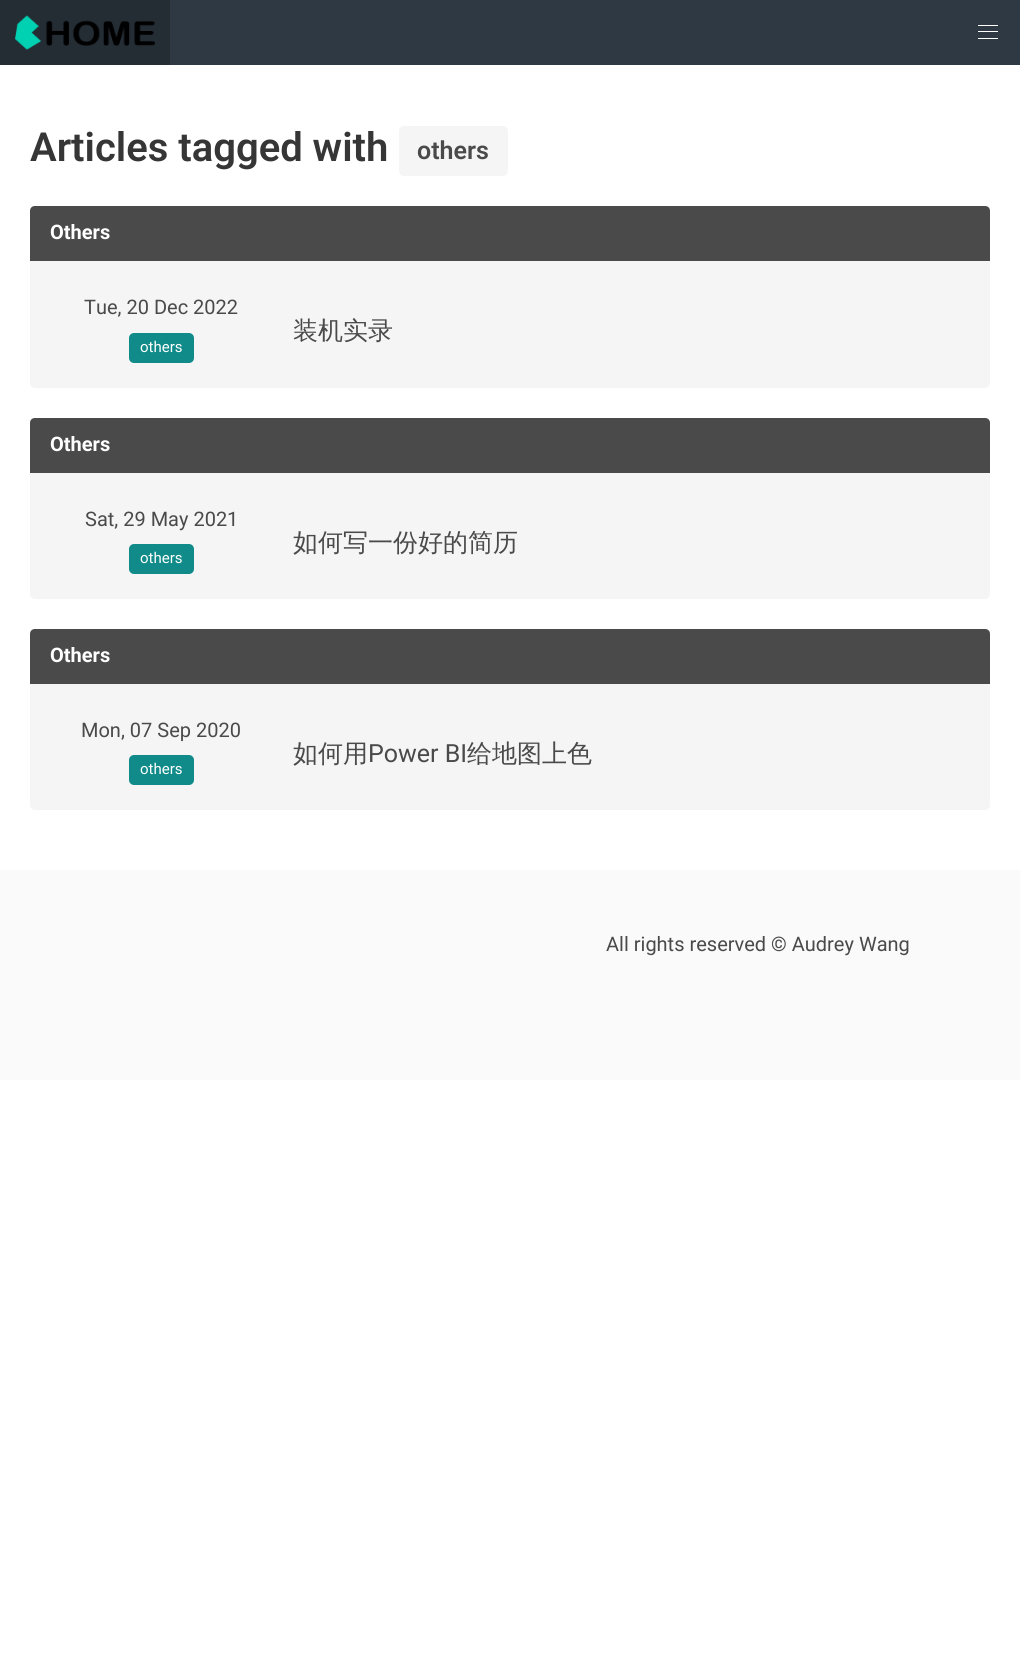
import math
import cairo

surface = cairo.ImageSurface(cairo.FORMAT_RGB24, 1020, 1665)
cr = cairo.Context(surface)
options = cairo.FontOptions()
options.set_hint_metrics(cairo.HINT_METRICS_OFF)
options.set_hint_style(cairo.HINT_STYLE_NONE)
cr.set_font_options(options)
cr.set_miter_limit(4)


def rgb(code):
    cr.set_source_rgb(*(v / 255 for v in bytes.fromhex(code[-6:])))


def rrect(x, y, w, h, r):
    cr.new_sub_path()
    for i, (u, v) in enumerate([(x + w - r, y + h - r), (x + r, y + h - r), (x + r, y + r), (x + w - r, y + r)]):
        cr.arc(u, v, r, i * math.pi / 2, (i + 1) * math.pi / 2)
    cr.close_path()


def image(path, x, y, w, h):
    cr.save()
    cr.set_source_surface(cairo.ImageSurface.create_from_png(path), x, y)
    cr.rectangle(x, y, w, h)
    cr.fill()
    cr.restore()


rgb("#ffffff")
cr.paint()
rgb("#2e3943")
cr.rectangle(170, 0, 850, 65)
cr.fill()
rgb("#242c34")
cr.rectangle(0, 0, 170, 65)
cr.fill()
image("img/1.png", 15, 15, 140, 35)
for x, y, w, h, color in [
    (978, 25, 20, 1, "#ffffff"),
    (978, 31, 20, 1, "#ffffff"),
    (978, 38, 20, 1, "#ffffff"),
]:
    rgb(color)
    cr.rectangle(x, y, w, h)
    cr.fill()
rgb("#f5f5f5")
rrect(399, 126, 109, 50, 5)
cr.fill()
rrect(30, 206, 960, 182, 5)
cr.fill()
rgb("#4a4a4a")
cr.new_path()
cr.move_to(35, 206)
cr.line_to(985, 206)
cr.curve_to(988, 206, 990, 208, 990, 211)
cr.line_to(990, 261)
cr.line_to(30, 261)
cr.line_to(30, 211)
cr.curve_to(30, 208, 32, 206, 35, 206)
cr.close_path()
cr.fill()
rgb("#108b8a")
rrect(129, 333, 65, 30, 5)
cr.fill()
rgb("#f5f5f5")
rrect(30, 418, 960, 181, 5)
cr.fill()
rgb("#4a4a4a")
cr.new_path()
cr.move_to(35, 418)
cr.line_to(985, 418)
cr.curve_to(988, 418, 990, 420, 990, 423)
cr.line_to(990, 473)
cr.line_to(30, 473)
cr.line_to(30, 423)
cr.curve_to(30, 420, 32, 418, 35, 418)
cr.close_path()
cr.fill()
rgb("#108b8a")
rrect(129, 544, 65, 30, 5)
cr.fill()
rgb("#f5f5f5")
rrect(30, 629, 960, 181, 5)
cr.fill()
rgb("#4a4a4a")
cr.new_path()
cr.move_to(35, 629)
cr.line_to(985, 629)
cr.curve_to(988, 629, 990, 631, 990, 634)
cr.line_to(990, 684)
cr.line_to(30, 684)
cr.line_to(30, 634)
cr.curve_to(30, 631, 32, 629, 35, 629)
cr.close_path()
cr.fill()
rgb("#108b8a")
rrect(129, 755, 65, 30, 5)
cr.fill()
rgb("#fafafa")
cr.rectangle(0, 870, 1020, 210)
cr.fill()
cr.select_font_face("Roboto SemiBold")
cr.set_font_size(40)
rgb("#363636")
cr.move_to(30, 161)
cr.show_text("Articles tagged with")
cr.set_font_size(25)
rgb("#4a4a4a")
cr.move_to(417, 159)
cr.show_text("others")
cr.select_font_face("Roboto", cairo.FONT_SLANT_NORMAL, cairo.FONT_WEIGHT_BOLD)
cr.set_font_size(20)
rgb("#ffffff")
cr.move_to(50, 239)
cr.show_text("Others")
cr.select_font_face("Roboto")
rgb("#4a4a4a")
cr.move_to(84, 314)
cr.show_text("Tue, 20 Dec 2022")
cr.set_font_size(15)
rgb("#ffffff")
cr.move_to(140, 352)
cr.show_text("others")
cr.select_font_face("WenQuanYi Zen Hei Medium")
cr.set_font_size(25)
rgb("#4a4a4a")
cr.move_to(293, 339)
cr.show_text("装机实录")
cr.select_font_face("Roboto", cairo.FONT_SLANT_NORMAL, cairo.FONT_WEIGHT_BOLD)
cr.set_font_size(20)
rgb("#ffffff")
cr.move_to(50, 451)
cr.show_text("Others")
cr.select_font_face("Roboto")
rgb("#4a4a4a")
cr.move_to(85, 526)
cr.show_text("Sat, 29 May 2021")
cr.set_font_size(15)
rgb("#ffffff")
cr.move_to(140, 563)
cr.show_text("others")
cr.select_font_face("WenQuanYi Zen Hei Medium")
cr.set_font_size(25)
rgb("#4a4a4a")
cr.move_to(293, 551)
cr.show_text("如何写一份好的简历")
cr.select_font_face("Roboto", cairo.FONT_SLANT_NORMAL, cairo.FONT_WEIGHT_BOLD)
cr.set_font_size(20)
rgb("#ffffff")
cr.move_to(50, 662)
cr.show_text("Others")
cr.select_font_face("Roboto")
rgb("#4a4a4a")
cr.move_to(81, 737)
cr.show_text("Mon, 07 Sep 2020")
cr.set_font_size(15)
rgb("#ffffff")
cr.move_to(140, 774)
cr.show_text("others")
cr.select_font_face("WenQuanYi Zen Hei Medium")
cr.set_font_size(25)
rgb("#4a4a4a")
cr.move_to(293, 762)
cr.show_text("如何用")
cr.select_font_face("Roboto")
cr.move_to(368, 762)
cr.show_text("Power BI")
cr.select_font_face("WenQuanYi Zen Hei Medium")
cr.move_to(467, 762)
cr.show_text("给地图上色")
cr.select_font_face("Roboto")
cr.set_font_size(20)
cr.move_to(606, 951)
cr.show_text("All rights reserved © Audrey Wang")
surface.write_to_png("page.png")
